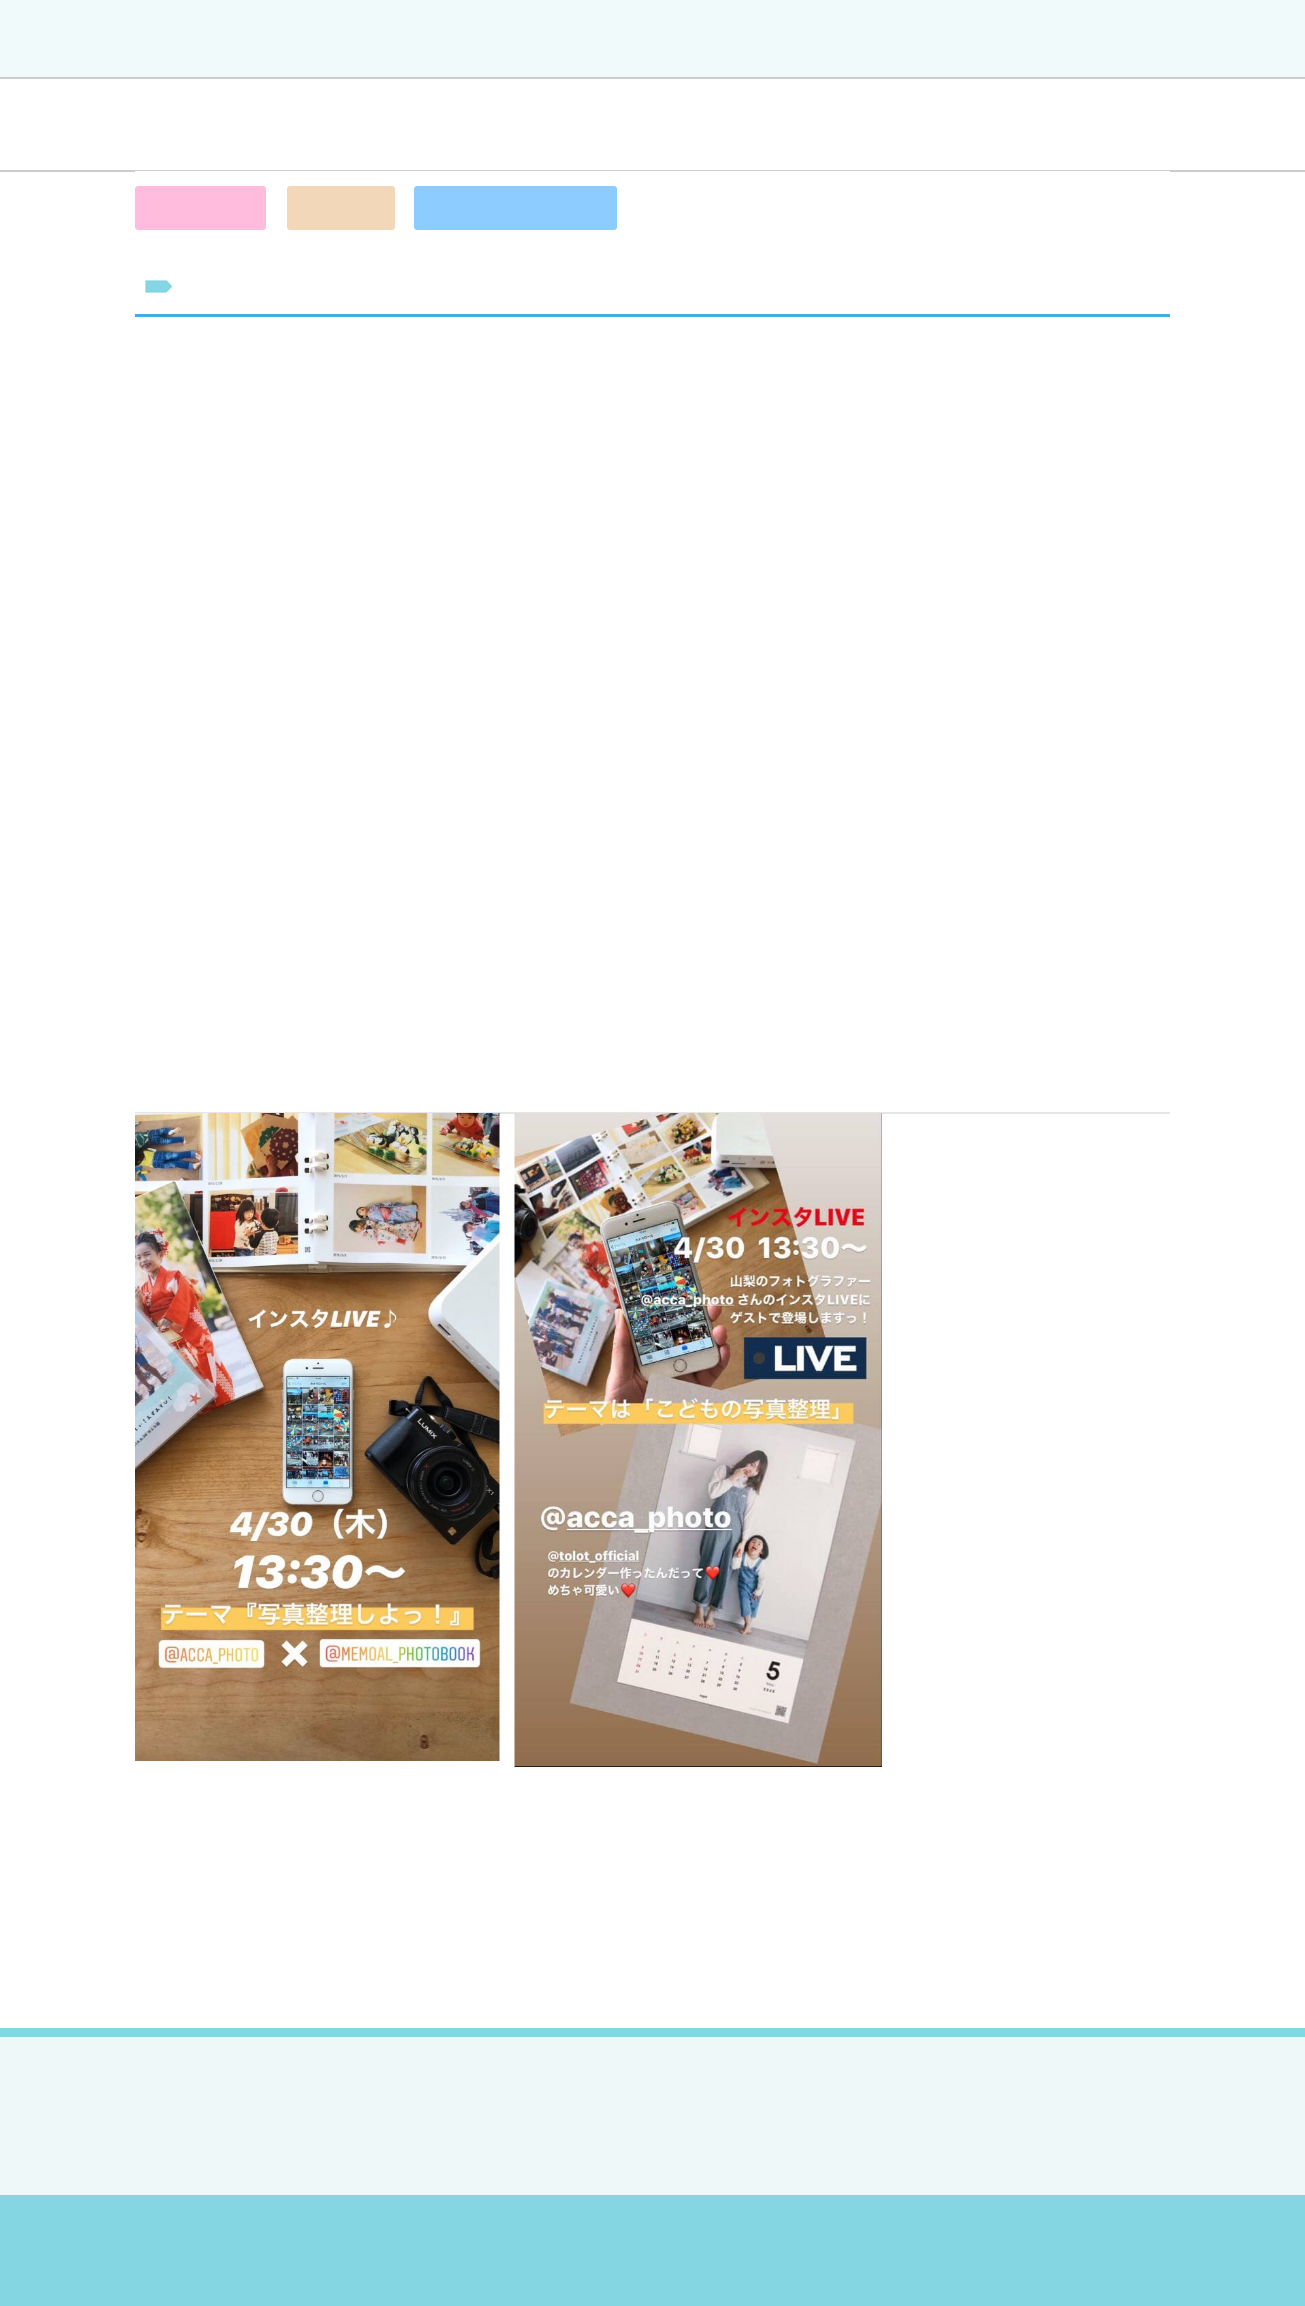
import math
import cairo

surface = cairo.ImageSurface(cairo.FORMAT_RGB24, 1305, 2306)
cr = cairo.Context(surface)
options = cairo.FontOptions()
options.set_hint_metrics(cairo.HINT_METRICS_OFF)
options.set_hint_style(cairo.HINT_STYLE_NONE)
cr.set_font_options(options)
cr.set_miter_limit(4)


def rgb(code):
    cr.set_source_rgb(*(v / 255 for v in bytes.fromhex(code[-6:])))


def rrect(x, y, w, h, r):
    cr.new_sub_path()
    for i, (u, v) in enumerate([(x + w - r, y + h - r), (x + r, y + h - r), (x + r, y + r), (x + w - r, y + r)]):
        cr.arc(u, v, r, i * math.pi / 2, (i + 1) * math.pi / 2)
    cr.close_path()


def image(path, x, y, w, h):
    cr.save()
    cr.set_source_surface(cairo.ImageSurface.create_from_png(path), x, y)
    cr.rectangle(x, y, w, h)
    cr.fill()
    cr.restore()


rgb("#ffffff")
cr.paint()
for x, y, w, h, color in [
    (0, 0, 1305, 77, "#f0fafb"),
    (0, 77, 1305, 2, "#cccccc"),
    (0, 170, 1305, 2, "#cccccc"),
    (135, 171, 1035, 1, "#ffffff"),
]:
    rgb(color)
    cr.rectangle(x, y, w, h)
    cr.fill()
rgb("#ffbcdd")
rrect(135, 186, 131, 44, 3)
cr.fill()
rgb("#f2d8b8")
rrect(287, 186, 108, 44, 3)
cr.fill()
rgb("#8cccff")
rrect(414, 186, 203, 44, 3)
cr.fill()
rgb("#43ace2")
cr.rectangle(135, 314, 1035, 3)
cr.fill()
image("img/1.png", 145, 280, 28, 13)
rgb("#e6e6e6")
cr.rectangle(135, 1112, 1035, 2)
cr.fill()
image("img/2.png", 135, 1113, 365, 648)
image("img/3.png", 514, 1113, 368, 654)
for x, y, w, h, color in [
    (0, 2028, 1305, 9, "#84d6e2"),
    (0, 2037, 1305, 158, "#eff8f9"),
    (0, 2195, 1305, 111, "#84d6e2"),
]:
    rgb(color)
    cr.rectangle(x, y, w, h)
    cr.fill()
surface.write_to_png("page.png")
